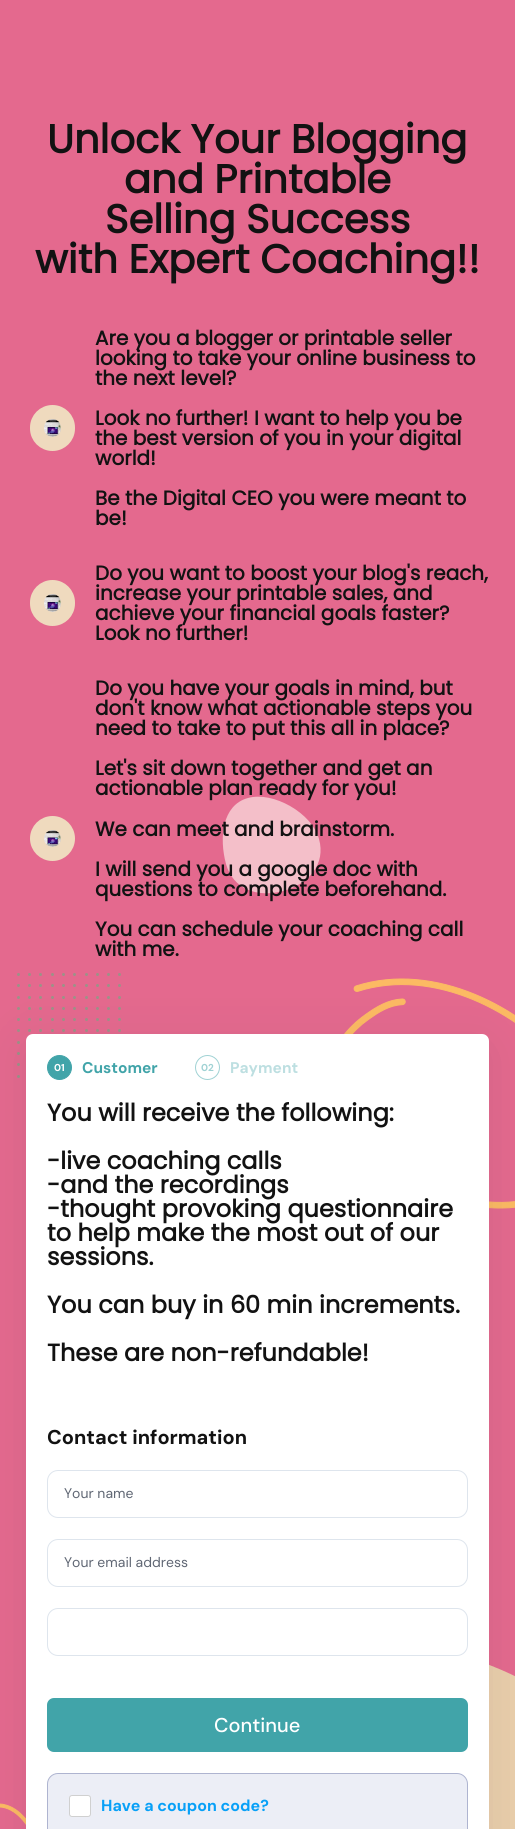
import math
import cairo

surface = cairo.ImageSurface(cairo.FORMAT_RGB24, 515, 1829)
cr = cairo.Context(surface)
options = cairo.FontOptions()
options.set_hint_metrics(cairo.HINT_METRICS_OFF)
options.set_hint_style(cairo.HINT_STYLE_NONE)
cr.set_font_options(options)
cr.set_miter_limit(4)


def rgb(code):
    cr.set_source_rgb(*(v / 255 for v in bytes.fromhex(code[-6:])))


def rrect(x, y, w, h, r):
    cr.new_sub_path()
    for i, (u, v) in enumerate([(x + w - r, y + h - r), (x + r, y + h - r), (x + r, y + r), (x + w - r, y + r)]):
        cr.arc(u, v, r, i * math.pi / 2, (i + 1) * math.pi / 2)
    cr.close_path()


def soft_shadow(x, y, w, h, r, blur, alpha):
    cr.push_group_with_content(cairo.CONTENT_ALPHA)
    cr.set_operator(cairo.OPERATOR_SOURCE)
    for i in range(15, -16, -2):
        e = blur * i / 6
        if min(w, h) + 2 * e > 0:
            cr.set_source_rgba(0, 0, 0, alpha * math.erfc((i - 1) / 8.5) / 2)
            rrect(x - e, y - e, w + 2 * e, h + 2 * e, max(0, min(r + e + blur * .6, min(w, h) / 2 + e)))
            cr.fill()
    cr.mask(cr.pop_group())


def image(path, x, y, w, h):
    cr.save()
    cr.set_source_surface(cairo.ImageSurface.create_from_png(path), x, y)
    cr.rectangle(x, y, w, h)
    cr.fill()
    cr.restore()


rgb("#e4698e")
cr.paint()
rgb("#efdabe")
rrect(37, 412, 31, 32, 15.5)
cr.fill_preserve()
cr.set_line_width(14)
cr.stroke()
image("img/1.png", 44, 419, 17, 18)
rrect(37, 587, 31, 32, 15.5)
cr.fill_preserve()
cr.stroke()
image("img/1.png", 44, 594, 17, 18)
cr.arc(52.5, 838.5, 15.5, 0, 2 * math.pi)
cr.fill_preserve()
cr.stroke()
image("img/2.png", 44, 830, 17, 17)
rgb("#f4bfc9")
cr.new_path()
cr.move_to(319, 839)
cr.curve_to(326, 864, 309, 884, 283, 891)
cr.curve_to(257, 898, 233, 889, 226, 864)
cr.curve_to(219, 838, 222, 805, 248, 798)
cr.curve_to(273, 791, 312, 813, 319, 839)
cr.close_path()
cr.fill()
rgb("#9c9287")
cr.arc(18.5, 974.5, 1.5, 0, 2 * math.pi)
cr.fill()
cr.arc(29.5, 974.5, 1.5, 0, 2 * math.pi)
cr.fill()
cr.arc(40.5, 974.5, 1.5, 0, 2 * math.pi)
cr.fill()
cr.arc(52.5, 974.5, 1.5, 0, 2 * math.pi)
cr.fill()
cr.arc(63.5, 974.5, 1.5, 0, 2 * math.pi)
cr.fill()
cr.arc(74.5, 974.5, 1.5, 0, 2 * math.pi)
cr.fill()
cr.arc(86.5, 974.5, 1.5, 0, 2 * math.pi)
cr.fill()
cr.arc(97.5, 974.5, 1.5, 0, 2 * math.pi)
cr.fill()
cr.arc(108.5, 974.5, 1.5, 0, 2 * math.pi)
cr.fill()
cr.arc(119.5, 974.5, 1.5, 0, 2 * math.pi)
cr.fill()
cr.arc(18.5, 985.5, 1.5, 0, 2 * math.pi)
cr.fill()
cr.arc(29.5, 985.5, 1.5, 0, 2 * math.pi)
cr.fill()
cr.arc(40.5, 985.5, 1.5, 0, 2 * math.pi)
cr.fill()
cr.arc(52.5, 985.5, 1.5, 0, 2 * math.pi)
cr.fill()
cr.arc(63.5, 985.5, 1.5, 0, 2 * math.pi)
cr.fill()
cr.arc(74.5, 985.5, 1.5, 0, 2 * math.pi)
cr.fill()
cr.arc(86.5, 985.5, 1.5, 0, 2 * math.pi)
cr.fill()
cr.arc(97.5, 985.5, 1.5, 0, 2 * math.pi)
cr.fill()
cr.arc(108.5, 985.5, 1.5, 0, 2 * math.pi)
cr.fill()
cr.arc(119.5, 985.5, 1.5, 0, 2 * math.pi)
cr.fill()
cr.arc(18.5, 997.5, 1.5, 0, 2 * math.pi)
cr.fill()
cr.arc(29.5, 997.5, 1.5, 0, 2 * math.pi)
cr.fill()
cr.arc(40.5, 997.5, 1.5, 0, 2 * math.pi)
cr.fill()
cr.arc(52.5, 997.5, 1.5, 0, 2 * math.pi)
cr.fill()
cr.arc(63.5, 997.5, 1.5, 0, 2 * math.pi)
cr.fill()
cr.arc(74.5, 997.5, 1.5, 0, 2 * math.pi)
cr.fill()
cr.arc(86.5, 997.5, 1.5, 0, 2 * math.pi)
cr.fill()
cr.arc(97.5, 997.5, 1.5, 0, 2 * math.pi)
cr.fill()
cr.arc(108.5, 997.5, 1.5, 0, 2 * math.pi)
cr.fill()
cr.arc(119.5, 997.5, 1.5, 0, 2 * math.pi)
cr.fill()
cr.arc(18.5, 1008.5, 1.5, 0, 2 * math.pi)
cr.fill()
cr.arc(29.5, 1008.5, 1.5, 0, 2 * math.pi)
cr.fill()
cr.arc(40.5, 1008.5, 1.5, 0, 2 * math.pi)
cr.fill()
cr.arc(52.5, 1008.5, 1.5, 0, 2 * math.pi)
cr.fill()
cr.arc(63.5, 1008.5, 1.5, 0, 2 * math.pi)
cr.fill()
cr.arc(74.5, 1008.5, 1.5, 0, 2 * math.pi)
cr.fill()
cr.arc(86.5, 1008.5, 1.5, 0, 2 * math.pi)
cr.fill()
cr.arc(97.5, 1008.5, 1.5, 0, 2 * math.pi)
cr.fill()
cr.arc(108.5, 1008.5, 1.5, 0, 2 * math.pi)
cr.fill()
cr.arc(119.5, 1008.5, 1.5, 0, 2 * math.pi)
cr.fill()
cr.arc(18.5, 1019.5, 1.5, 0, 2 * math.pi)
cr.fill()
cr.arc(29.5, 1019.5, 1.5, 0, 2 * math.pi)
cr.fill()
cr.arc(40.5, 1019.5, 1.5, 0, 2 * math.pi)
cr.fill()
cr.arc(52.5, 1019.5, 1.5, 0, 2 * math.pi)
cr.fill()
cr.arc(63.5, 1019.5, 1.5, 0, 2 * math.pi)
cr.fill()
cr.arc(74.5, 1019.5, 1.5, 0, 2 * math.pi)
cr.fill()
cr.arc(86.5, 1019.5, 1.5, 0, 2 * math.pi)
cr.fill()
cr.arc(97.5, 1019.5, 1.5, 0, 2 * math.pi)
cr.fill()
cr.arc(108.5, 1019.5, 1.5, 0, 2 * math.pi)
cr.fill()
cr.arc(119.5, 1019.5, 1.5, 0, 2 * math.pi)
cr.fill()
cr.arc(18.5, 1030.5, 1.5, 0, 2 * math.pi)
cr.fill()
cr.arc(29.5, 1030.5, 1.5, 0, 2 * math.pi)
cr.fill()
cr.arc(40.5, 1030.5, 1.5, 0, 2 * math.pi)
cr.fill()
cr.arc(52.5, 1030.5, 1.5, 0, 2 * math.pi)
cr.fill()
cr.arc(63.5, 1030.5, 1.5, 0, 2 * math.pi)
cr.fill()
cr.arc(74.5, 1030.5, 1.5, 0, 2 * math.pi)
cr.fill()
cr.arc(86.5, 1030.5, 1.5, 0, 2 * math.pi)
cr.fill()
cr.arc(97.5, 1030.5, 1.5, 0, 2 * math.pi)
cr.fill()
cr.arc(108.5, 1030.5, 1.5, 0, 2 * math.pi)
cr.fill()
cr.arc(119.5, 1030.5, 1.5, 0, 2 * math.pi)
cr.fill()
cr.arc(18.5, 1042.5, 1.5, 0, 2 * math.pi)
cr.fill()
cr.arc(18.5, 1053.5, 1.5, 0, 2 * math.pi)
cr.fill()
cr.arc(18.5, 1064.5, 1.5, 0, 2 * math.pi)
cr.fill()
cr.arc(18.5, 1076.5, 1.5, 0, 2 * math.pi)
cr.fill()
image("img/3.png", 344, 978, 171, 231)
image("img/4.png", 0, 1803, 26, 22)
rgb("#eaceab")
cr.new_path()
cr.move_to(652, 1821)
cr.curve_to(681, 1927, 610, 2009, 504, 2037)
cr.curve_to(397, 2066, 296, 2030, 267, 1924)
cr.curve_to(239, 1818, 251, 1681, 357, 1652)
cr.curve_to(464, 1624, 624, 1715, 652, 1821)
cr.close_path()
cr.fill()
rgb("#222f3e")
soft_shadow(26, 1044, 463, 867, 7, 25, 0.1)
rgb("#ffffff")
rrect(26, 1034, 463, 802, 7)
cr.fill()
rgb("#41a4a9")
cr.arc(59.5, 1067.5, 12, 0, 2 * math.pi)
cr.fill_preserve()
cr.set_line_width(1)
cr.stroke()
cr.arc(207.5, 1067.5, 12, 0, 2 * math.pi)
rgb("#a0d2d4")
cr.stroke()
rrect(47.5, 1470.5, 420, 47, 10.5)
rgb("#dee5ed")
cr.stroke()
rrect(47.5, 1539.5, 420, 47, 10.5)
cr.stroke()
rrect(47.5, 1608.5, 420, 47, 10.5)
cr.stroke()
rgb("#41a4a9")
rrect(47, 1698, 421, 54, 7)
cr.fill()
rgb("#eceef6")
rrect(47.5, 1773.5, 420, 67, 10.5)
cr.fill_preserve()
rgb("#aeb4d0")
cr.stroke()
rgb("#ffffff")
rrect(69.5, 1795.5, 21, 21, 2.5)
cr.fill_preserve()
rgb("#d0d0d0")
cr.stroke()
cr.select_font_face("Poppins", cairo.FONT_SLANT_NORMAL, cairo.FONT_WEIGHT_BOLD)
cr.set_font_size(40)
rgb("#121212")
for x, y, s in [
    (47, 153, "Unlock Your Blogging"),
    (124, 193, "and Printable"),
    (105, 233, "Selling Success"),
    (35, 273, "with Expert Coaching!!"),
]:
    cr.move_to(x, y)
    cr.show_text(s)
cr.set_font_size(20)
for x, y, s in [
    (95, 345, "Are you a blogger or printable seller"),
    (95, 365, "looking to take your online business to"),
    (95, 385, "the next level?"),
    (95, 425, "Look no further! I want to help you be"),
    (95, 445, "the best version of you in your digital"),
    (95, 465, "world!"),
    (95, 505, "Be the Digital CEO you were meant to"),
    (95, 525, "be!"),
    (95, 580, "Do you want to boost your blog's reach,"),
    (95, 600, "increase your printable sales, and"),
    (95, 620, "achieve your financial goals faster?"),
    (95, 640, "Look no further!"),
    (95, 695, "Do you have your goals in mind, but"),
    (95, 715, "don't know what actionable steps you"),
    (95, 735, "need to take to put this all in place?"),
    (95, 775, "Let's sit down together and get an"),
    (95, 795, "actionable plan ready for you!"),
    (95, 836, "We can meet and brainstorm."),
    (95, 876, "I will send you a google doc with"),
    (95, 896, "questions to complete beforehand."),
    (95, 936, "You can schedule your coaching call"),
    (95, 956, "with me."),
]:
    cr.move_to(x, y)
    cr.show_text(s)
cr.select_font_face("DM Sans", cairo.FONT_SLANT_NORMAL, cairo.FONT_WEIGHT_BOLD)
cr.set_font_size(10)
rgb("#ffffff")
cr.move_to(54, 1071)
cr.show_text("01")
cr.set_font_size(15.5)
rgb("#41a4a9")
cr.move_to(82, 1073)
cr.show_text("Customer")
cr.set_font_size(10)
rgb("#a0d2d4")
cr.move_to(201, 1071)
cr.show_text("02")
cr.set_font_size(15.5)
rgb("#bddfe1")
cr.move_to(230, 1073)
cr.show_text("Payment")
cr.select_font_face("Poppins", cairo.FONT_SLANT_NORMAL, cairo.FONT_WEIGHT_BOLD)
cr.set_font_size(24)
rgb("#121212")
for x, y, s in [
    (47, 1121, "You will receive the following:"),
    (47, 1169, "-live coaching calls"),
    (47, 1193, "-and the recordings"),
    (47, 1217, "-thought provoking questionnaire"),
    (47, 1241, "to help make the most out of our"),
    (47, 1265, "sessions."),
    (47, 1313, "You can buy in 60 min increments."),
    (47, 1361, "These are non-refundable!"),
]:
    cr.move_to(x, y)
    cr.show_text(s)
cr.select_font_face("DM Sans", cairo.FONT_SLANT_NORMAL, cairo.FONT_WEIGHT_BOLD)
cr.set_font_size(20)
cr.move_to(47, 1444)
cr.show_text("Contact information")
cr.select_font_face("DM Sans")
cr.set_font_size(14)
rgb("#606774")
cr.move_to(64, 1498)
cr.show_text("Your name")
cr.move_to(64, 1567)
cr.show_text("Your email address")
cr.select_font_face("DM Sans Medium")
cr.set_font_size(20)
rgb("#ffffff")
cr.move_to(214, 1732)
cr.show_text("Continue")
cr.select_font_face("DM Sans", cairo.FONT_SLANT_NORMAL, cairo.FONT_WEIGHT_BOLD)
cr.set_font_size(16)
rgb("#08a0f7")
cr.move_to(101, 1811)
cr.show_text("Have a coupon code?")
surface.write_to_png("page.png")
